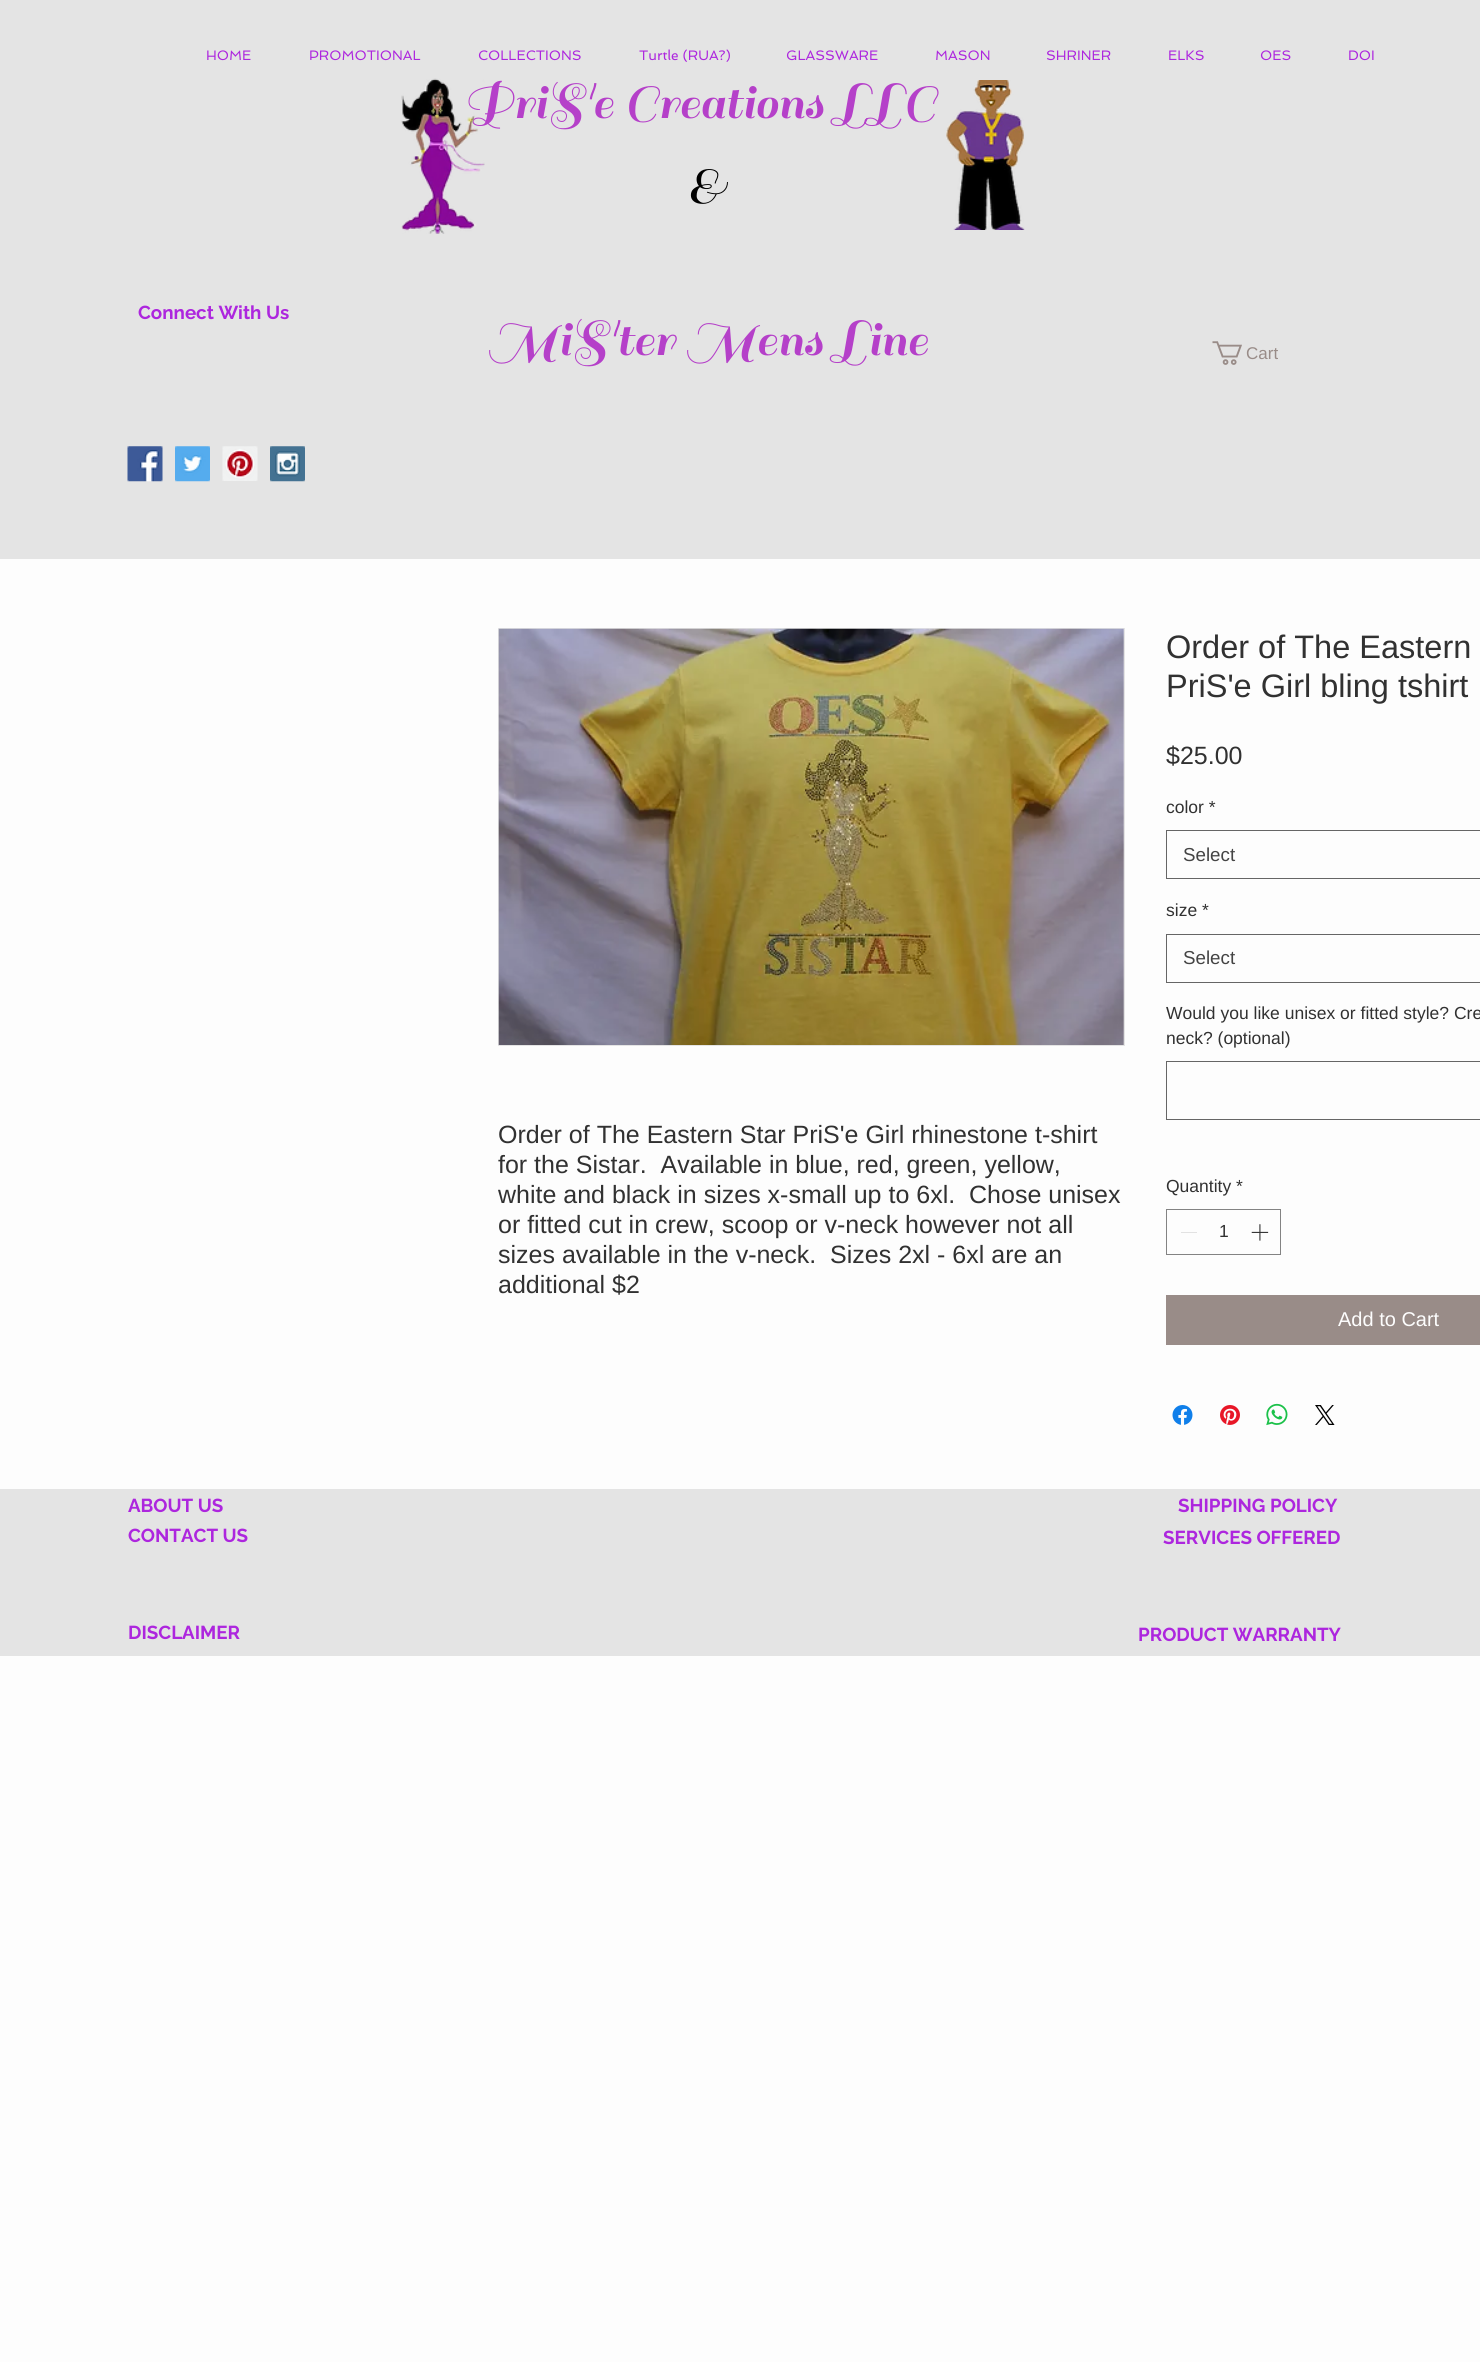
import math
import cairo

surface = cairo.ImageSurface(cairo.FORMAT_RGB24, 1480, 2362)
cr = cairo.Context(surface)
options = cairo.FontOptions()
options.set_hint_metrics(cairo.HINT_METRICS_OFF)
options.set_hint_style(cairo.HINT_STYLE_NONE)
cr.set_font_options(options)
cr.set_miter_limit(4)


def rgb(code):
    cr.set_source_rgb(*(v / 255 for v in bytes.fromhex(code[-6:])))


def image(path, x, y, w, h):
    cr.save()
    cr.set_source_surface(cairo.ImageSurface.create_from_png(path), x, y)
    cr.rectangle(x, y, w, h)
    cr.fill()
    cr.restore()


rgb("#fdfdfd")
cr.paint()
rgb("#e4e4e4")
cr.rectangle(0, 0, 1480, 559)
cr.fill()
image("img/2.png", 946, 80, 79, 150)
image("img/3.png", 1212, 341, 30, 24)
image("img/4.png", 127, 446, 36, 36)
image("img/5.png", 175, 446, 35, 36)
image("img/6.png", 222, 446, 36, 35)
image("img/7.png", 270, 446, 35, 36)
cr.rectangle(498.5, 628.5, 626, 417)
cr.set_line_width(1)
cr.stroke()
image("img/8.png", 498, 628, 626, 417)
cr.rectangle(1166.5, 830.5, 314, 48)
rgb("#666666")
cr.stroke()
cr.rectangle(1166.5, 934.5, 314, 48)
cr.stroke()
cr.rectangle(1166.5, 1061.5, 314, 58)
cr.stroke()
cr.rectangle(1166.5, 1209.5, 114, 45)
rgb("#838383")
cr.stroke()
rgb("#e2e2e2")
cr.rectangle(1181, 1232, 16, 1)
cr.fill()
image("img/9.png", 1251, 1224, 18, 17)
rgb("#998c88")
cr.rectangle(1166, 1295, 314, 50)
cr.fill()
image("img/10.png", 1172, 1405, 21, 20)
image("img/11.png", 1220, 1405, 20, 20)
image("img/12.png", 1266, 1403, 22, 23)
image("img/13.png", 1315, 1405, 20, 20)
rgb("#e4e4e4")
cr.rectangle(0, 1489, 1480, 167)
cr.fill()
cr.select_font_face("Spinnaker")
cr.set_font_size(13.75)
rgb("#ad26de")
for x, y, s in [
    (206, 60, "HOME"),
    (309, 60, "PROMOTIONAL"),
    (478, 60, "COLLECTIONS"),
    (639, 60, "Turtle (RUA?)"),
    (786, 60, "GLASSWARE"),
    (935, 60, "MASON"),
    (1046, 60, "SHRINER"),
    (1168, 60, "ELKS"),
    (1260, 60, "OES"),
    (1348, 60, "DOI"),
]:
    cr.move_to(x, y)
    cr.show_text(s)
cr.select_font_face("Sail")
cr.set_font_size(52.5)
rgb("#b540c9")
cr.move_to(463, 118)
cr.show_text("PriS'e Creations LLC")
image("img/1.png", 401, 78, 84, 156)
rgb("#000000")
cr.move_to(688, 201)
cr.show_text("&")
cr.select_font_face("Raleway", cairo.FONT_SLANT_NORMAL, cairo.FONT_WEIGHT_BOLD)
cr.set_font_size(18.75)
rgb("#ad26de")
cr.move_to(138, 319)
cr.show_text("Connect With Us")
cr.select_font_face("Sail")
cr.set_font_size(52.5)
rgb("#b540c9")
cr.move_to(488, 355)
cr.show_text("MiS'ter Mens Line")
cr.select_font_face("Liberation Sans")
cr.set_font_size(17)
rgb("#998c88")
cr.move_to(1246, 359)
cr.show_text("Cart")
cr.set_font_size(25)
rgb("#313131")
cr.move_to(498, 1143)
cr.show_text("Order of The Eastern Star PriS'e Girl rhinestone t-shirt")
cr.move_to(498, 1173)
cr.show_text("for the Sistar.  Available in blue, red, green, yellow,")
cr.save()
cr.rectangle(498, 1119, 625, 180)
cr.clip()
cr.move_to(498, 1203)
cr.show_text("white and black in sizes x-small up to 6xl.  Chose unisex")
cr.restore()
for x, y, s in [
    (498, 1233, "or fitted cut in crew, scoop or v-neck however not all"),
    (498, 1263, "sizes available in the v-neck.  Sizes 2xl - 6xl are an"),
    (498, 1293, "additional $2"),
]:
    cr.move_to(x, y)
    cr.show_text(s)
cr.set_font_size(32.5)
cr.move_to(1166, 658)
cr.show_text("Order of The Eastern")
cr.move_to(1166, 697)
cr.show_text("PriS'e Girl bling tshirt")
cr.set_font_size(25)
cr.move_to(1166, 764)
cr.show_text("$25.00")
cr.set_font_size(17.5)
cr.move_to(1166, 813)
cr.show_text("color *")
cr.set_font_size(18.75)
rgb("#444444")
cr.move_to(1183, 861)
cr.show_text("Select")
cr.set_font_size(17.5)
rgb("#313131")
cr.move_to(1166, 916)
cr.show_text("size *")
cr.set_font_size(18.75)
rgb("#444444")
cr.move_to(1183, 964)
cr.show_text("Select")
cr.set_font_size(17.5)
rgb("#313131")
for x, y, s in [
    (1166, 1019, "Would you like unisex or fitted style? Cre"),
    (1166, 1044, "neck? (optional)"),
    (1166, 1192, "Quantity *"),
    (1219, 1237, "1"),
]:
    cr.move_to(x, y)
    cr.show_text(s)
cr.set_font_size(20)
rgb("#fdfdfd")
cr.move_to(1338, 1326)
cr.show_text("Add to Cart")
cr.select_font_face("Raleway", cairo.FONT_SLANT_NORMAL, cairo.FONT_WEIGHT_BOLD)
cr.set_font_size(18.75)
rgb("#ad26de")
for x, y, s in [
    (128, 1512, "ABOUT US"),
    (1178, 1512, "SHIPPING POLICY"),
    (128, 1542, "CONTACT US"),
    (1163, 1544, "SERVICES OFFERED"),
    (128, 1639, "DISCLAIMER"),
    (1138, 1641, "PRODUCT WARRANTY"),
]:
    cr.move_to(x, y)
    cr.show_text(s)
surface.write_to_png("page.png")
